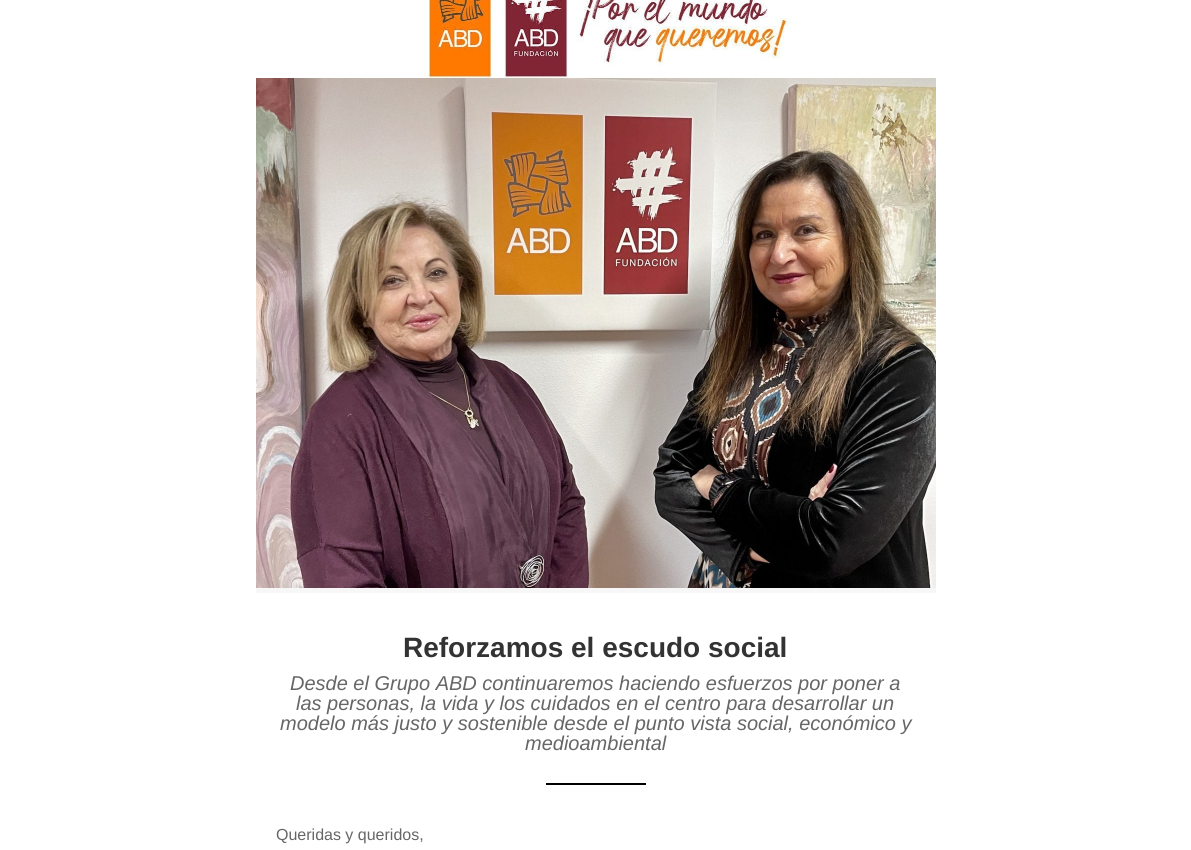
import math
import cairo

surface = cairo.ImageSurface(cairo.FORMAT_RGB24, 1191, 850)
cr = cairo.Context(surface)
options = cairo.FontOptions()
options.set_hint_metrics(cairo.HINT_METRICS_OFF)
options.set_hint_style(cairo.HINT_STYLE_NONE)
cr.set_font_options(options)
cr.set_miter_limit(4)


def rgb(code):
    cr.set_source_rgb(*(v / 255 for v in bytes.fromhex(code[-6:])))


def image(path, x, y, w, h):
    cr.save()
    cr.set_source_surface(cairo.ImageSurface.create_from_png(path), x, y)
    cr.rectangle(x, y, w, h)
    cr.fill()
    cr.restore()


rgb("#ffffff")
cr.paint()
image("img/1.png", 256, 0, 680, 78)
image("img/2.png", 256, 78, 680, 510)
rgb("#f7f7f7")
cr.rectangle(256, 588, 680, 5)
cr.fill()
rgb("#000000")
cr.rectangle(546, 783, 100, 2)
cr.fill()
cr.select_font_face("Liberation Sans", cairo.FONT_SLANT_NORMAL, cairo.FONT_WEIGHT_BOLD)
cr.set_font_size(28)
rgb("#333333")
cr.move_to(403, 657)
cr.show_text("Reforzamos el escudo social")
cr.select_font_face("Liberation Sans", cairo.FONT_SLANT_ITALIC)
cr.set_font_size(20)
rgb("#666666")
for x, y, s in [
    (290, 690, "Desde el Grupo ABD continuaremos haciendo esfuerzos por poner a"),
    (296, 710, "las personas, la vida y los cuidados en el centro para desarrollar un"),
    (280, 730, "modelo más justo y sostenible desde el punto vista social, económico y"),
    (525, 750, "medioambiental"),
]:
    cr.move_to(x, y)
    cr.show_text(s)
cr.select_font_face("Liberation Sans")
cr.set_font_size(16)
cr.move_to(276, 840)
cr.show_text("Queridas y queridos,")
surface.write_to_png("page.png")
